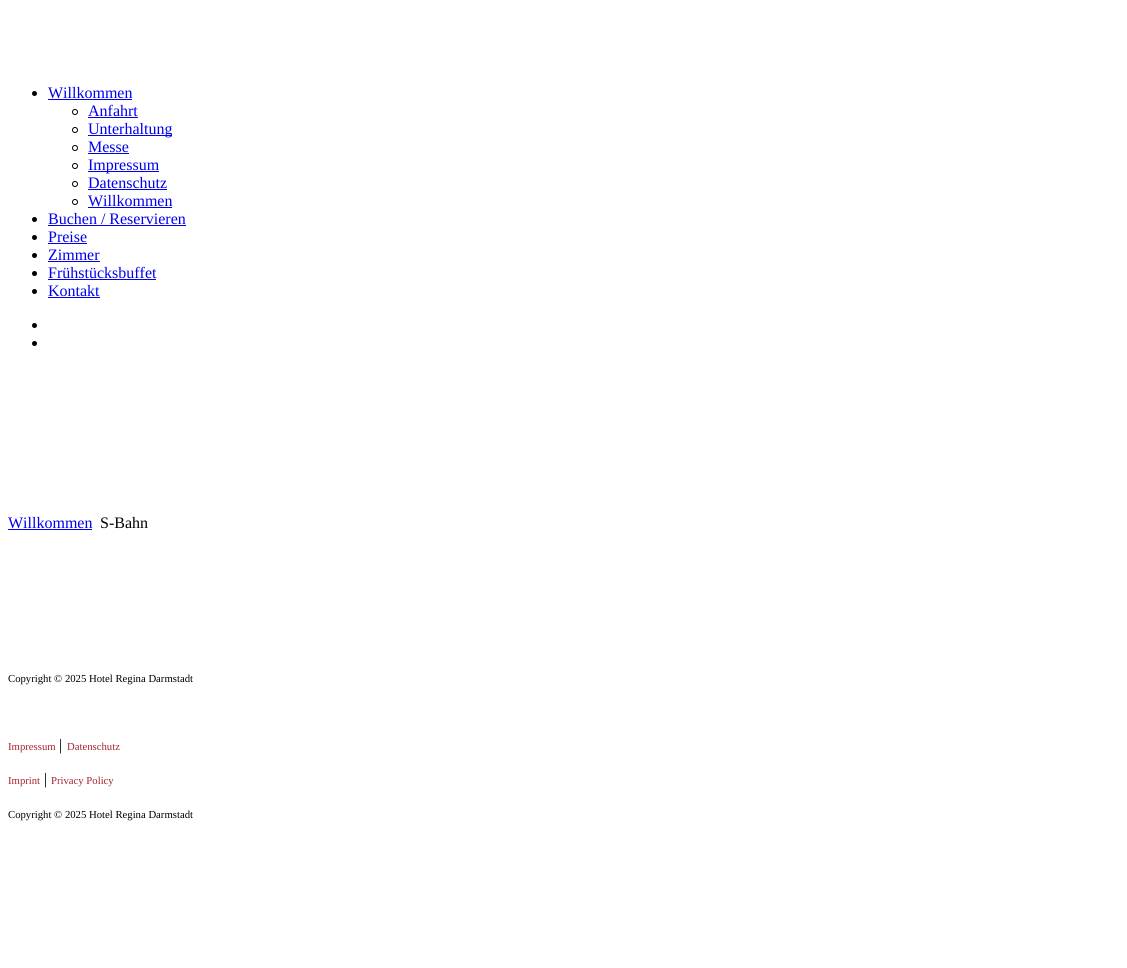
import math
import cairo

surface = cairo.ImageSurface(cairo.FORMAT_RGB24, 1127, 968)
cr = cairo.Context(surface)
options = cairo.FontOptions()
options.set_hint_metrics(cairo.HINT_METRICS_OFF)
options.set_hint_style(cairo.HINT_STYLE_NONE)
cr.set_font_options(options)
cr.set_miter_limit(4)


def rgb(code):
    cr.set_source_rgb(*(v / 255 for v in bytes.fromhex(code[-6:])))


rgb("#ffffff")
cr.paint()
rgb("#000000")
cr.arc(34.5, 93.5, 2.5, 0, 2 * math.pi)
cr.fill()
rgb("#0000ee")
cr.rectangle(48, 99, 84, 1)
cr.fill()
cr.arc(75, 112, 2.5, 0, 2 * math.pi)
rgb("#000000")
cr.set_line_width(1)
cr.stroke()
rgb("#0000ee")
cr.rectangle(88, 117, 50, 1)
cr.fill()
cr.arc(75, 130, 2.5, 0, 2 * math.pi)
rgb("#000000")
cr.stroke()
rgb("#0000ee")
cr.rectangle(88, 135, 84, 1)
cr.fill()
cr.arc(75, 148, 2.5, 0, 2 * math.pi)
rgb("#000000")
cr.stroke()
rgb("#0000ee")
cr.rectangle(88, 153, 41, 1)
cr.fill()
cr.arc(75, 166, 2.5, 0, 2 * math.pi)
rgb("#000000")
cr.stroke()
rgb("#0000ee")
cr.rectangle(88, 171, 71, 1)
cr.fill()
cr.arc(75, 184, 2.5, 0, 2 * math.pi)
rgb("#000000")
cr.stroke()
rgb("#0000ee")
cr.rectangle(88, 189, 79, 1)
cr.fill()
cr.arc(75, 202, 2.5, 0, 2 * math.pi)
rgb("#000000")
cr.stroke()
rgb("#0000ee")
cr.rectangle(88, 207, 84, 1)
cr.fill()
rgb("#000000")
cr.arc(34.5, 219.5, 2.5, 0, 2 * math.pi)
cr.fill()
rgb("#0000ee")
cr.rectangle(48, 225, 138, 1)
cr.fill()
rgb("#000000")
cr.arc(34.5, 237.5, 2.5, 0, 2 * math.pi)
cr.fill()
rgb("#0000ee")
cr.rectangle(48, 243, 39, 1)
cr.fill()
rgb("#000000")
cr.arc(34.5, 255.5, 2.5, 0, 2 * math.pi)
cr.fill()
rgb("#0000ee")
cr.rectangle(48, 261, 52, 1)
cr.fill()
rgb("#000000")
cr.arc(34.5, 273.5, 2.5, 0, 2 * math.pi)
cr.fill()
rgb("#0000ee")
cr.rectangle(48, 279, 108, 1)
cr.fill()
rgb("#000000")
cr.arc(34.5, 291.5, 2.5, 0, 2 * math.pi)
cr.fill()
rgb("#0000ee")
cr.rectangle(48, 297, 52, 1)
cr.fill()
rgb("#000000")
cr.arc(34.5, 325.5, 2.5, 0, 2 * math.pi)
cr.fill()
cr.arc(34.5, 343.5, 2.5, 0, 2 * math.pi)
cr.fill()
rgb("#0000ee")
cr.rectangle(8, 529, 84, 1)
cr.fill()
cr.select_font_face("Liberation Serif")
cr.set_font_size(16)
for x, y, s in [
    (48, 98, "Willkommen"),
    (88, 116, "Anfahrt"),
    (88, 134, "Unterhaltung"),
    (88, 152, "Messe"),
    (88, 170, "Impressum"),
    (88, 188, "Datenschutz"),
    (88, 206, "Willkommen"),
    (48, 224, "Buchen / Reservieren"),
    (48, 242, "Preise"),
    (48, 260, "Zimmer"),
    (48, 278, "Frühstücksbuffet"),
    (48, 296, "Kontakt"),
    (8, 528, "Willkommen"),
]:
    cr.move_to(x, y)
    cr.show_text(s)
rgb("#000000")
cr.move_to(100, 528)
cr.show_text("S-Bahn")
cr.set_font_size(10.7)
cr.move_to(8, 682)
cr.show_text("Copyright © 2025 Hotel Regina Darmstadt")
rgb("#a6242f")
cr.move_to(8, 750)
cr.show_text("Impressum")
cr.set_font_size(16)
rgb("#000000")
cr.move_to(59, 750)
cr.show_text("|")
cr.set_font_size(10.7)
rgb("#a6242f")
cr.move_to(67, 750)
cr.show_text("Datenschutz")
cr.move_to(8, 784)
cr.show_text("Imprint")
cr.set_font_size(16)
rgb("#000000")
cr.move_to(44, 784)
cr.show_text("|")
cr.set_font_size(10.7)
rgb("#a6242f")
cr.move_to(51, 784)
cr.show_text("Privacy Policy")
rgb("#000000")
cr.move_to(8, 818)
cr.show_text("Copyright © 2025 Hotel Regina Darmstadt")
surface.write_to_png("page.png")
